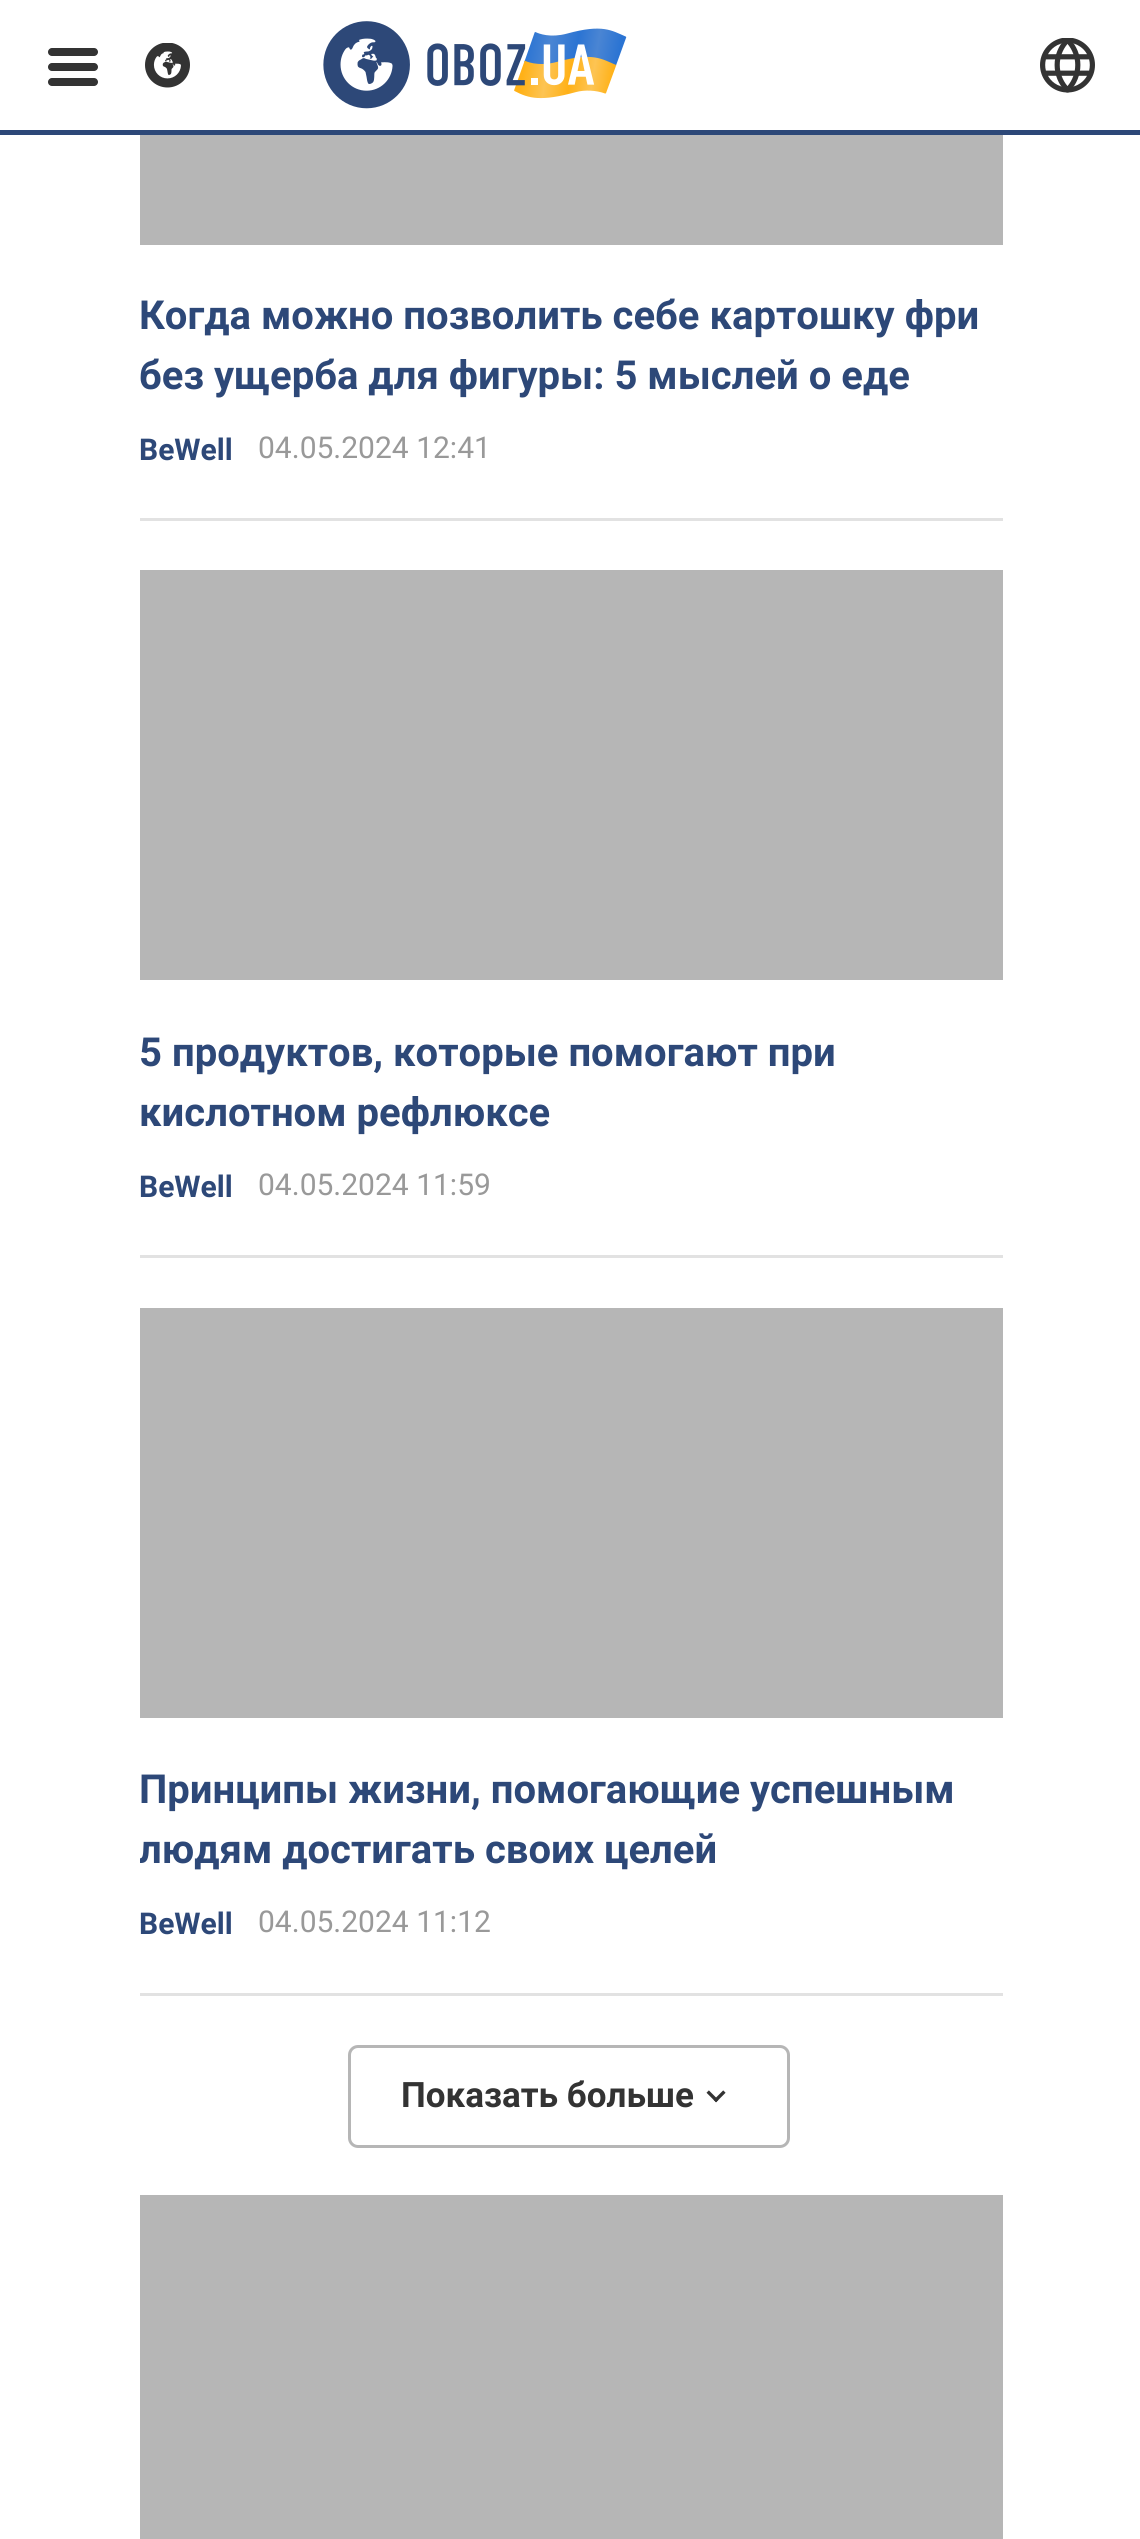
import math
import cairo

surface = cairo.ImageSurface(cairo.FORMAT_RGB24, 1140, 2539)
cr = cairo.Context(surface)
options = cairo.FontOptions()
options.set_hint_metrics(cairo.HINT_METRICS_OFF)
options.set_hint_style(cairo.HINT_STYLE_NONE)
cr.set_font_options(options)
cr.set_miter_limit(4)


def rgb(code):
    cr.set_source_rgb(*(v / 255 for v in bytes.fromhex(code[-6:])))


def rrect(x, y, w, h, r):
    cr.new_sub_path()
    for i, (u, v) in enumerate([(x + w - r, y + h - r), (x + r, y + h - r), (x + r, y + r), (x + w - r, y + r)]):
        cr.arc(u, v, r, i * math.pi / 2, (i + 1) * math.pi / 2)
    cr.close_path()


def image(path, x, y, w, h):
    cr.save()
    cr.set_source_surface(cairo.ImageSurface.create_from_png(path), x, y)
    cr.rectangle(x, y, w, h)
    cr.fill()
    cr.restore()


rgb("#ffffff")
cr.paint()
rgb("#2d4878")
cr.rectangle(0, 130, 1140, 5)
cr.fill()
rgb("#333333")
rrect(48, 63, 50, 8, 4)
cr.fill()
rrect(48, 48, 50, 8, 4)
cr.fill()
rrect(48, 78, 50, 8, 4)
cr.fill()
image("img/1.png", 145, 43, 45, 45)
image("img/2.png", 323, 21, 304, 88)
image("img/3.png", 1040, 38, 55, 55)
for x, y, w, h, color in [
    (140, 135, 863, 110, "#b6b6b6"),
    (140, 518, 863, 3, "#e2e2e2"),
    (140, 570, 863, 410, "#b6b6b6"),
    (140, 1255, 863, 3, "#e2e2e2"),
    (140, 1308, 863, 410, "#b6b6b6"),
    (140, 1993, 863, 3, "#e2e2e2"),
]:
    rgb(color)
    cr.rectangle(x, y, w, h)
    cr.fill()
rrect(349.5, 2046.5, 439, 100, 8.5)
rgb("#b6b6b6")
cr.set_line_width(3)
cr.stroke()
image("img/4.png", 706, 2090, 20, 13)
cr.rectangle(140, 2195, 863, 344)
cr.fill()
cr.select_font_face("Roboto", cairo.FONT_SLANT_NORMAL, cairo.FONT_WEIGHT_BOLD)
cr.set_font_size(40)
rgb("#2d4878")
cr.move_to(139, 329)
cr.show_text("Когда можно позволить себе картошку фри")
cr.move_to(139, 389)
cr.show_text("без ущерба для фигуры: 5 мыслей о еде")
cr.set_font_size(30)
cr.move_to(139, 460)
cr.show_text("BeWell")
cr.select_font_face("Roboto")
rgb("#999999")
cr.move_to(258, 458)
cr.show_text("04.05.2024 12:41")
cr.select_font_face("Roboto", cairo.FONT_SLANT_NORMAL, cairo.FONT_WEIGHT_BOLD)
cr.set_font_size(40)
rgb("#2d4878")
cr.move_to(139, 1066)
cr.show_text("5 продуктов, которые помогают при")
cr.move_to(139, 1126)
cr.show_text("кислотном рефлюксе")
cr.set_font_size(30)
cr.move_to(139, 1197)
cr.show_text("BeWell")
cr.select_font_face("Roboto")
rgb("#999999")
cr.move_to(258, 1195)
cr.show_text("04.05.2024 11:59")
cr.select_font_face("Roboto", cairo.FONT_SLANT_NORMAL, cairo.FONT_WEIGHT_BOLD)
cr.set_font_size(40)
rgb("#2d4878")
cr.move_to(139, 1803)
cr.show_text("Принципы жизни, помогающие успешным")
cr.save()
cr.rectangle(140, 1755, 863, 120)
cr.clip()
cr.move_to(139, 1863)
cr.show_text("людям достигать своих целей")
cr.restore()
cr.set_font_size(30)
cr.move_to(139, 1934)
cr.show_text("BeWell")
cr.select_font_face("Roboto")
rgb("#999999")
cr.move_to(258, 1932)
cr.show_text("04.05.2024 11:12")
cr.select_font_face("Roboto", cairo.FONT_SLANT_NORMAL, cairo.FONT_WEIGHT_BOLD)
cr.set_font_size(35)
rgb("#333333")
cr.move_to(401, 2107)
cr.show_text("Показать больше")
surface.write_to_png("page.png")
